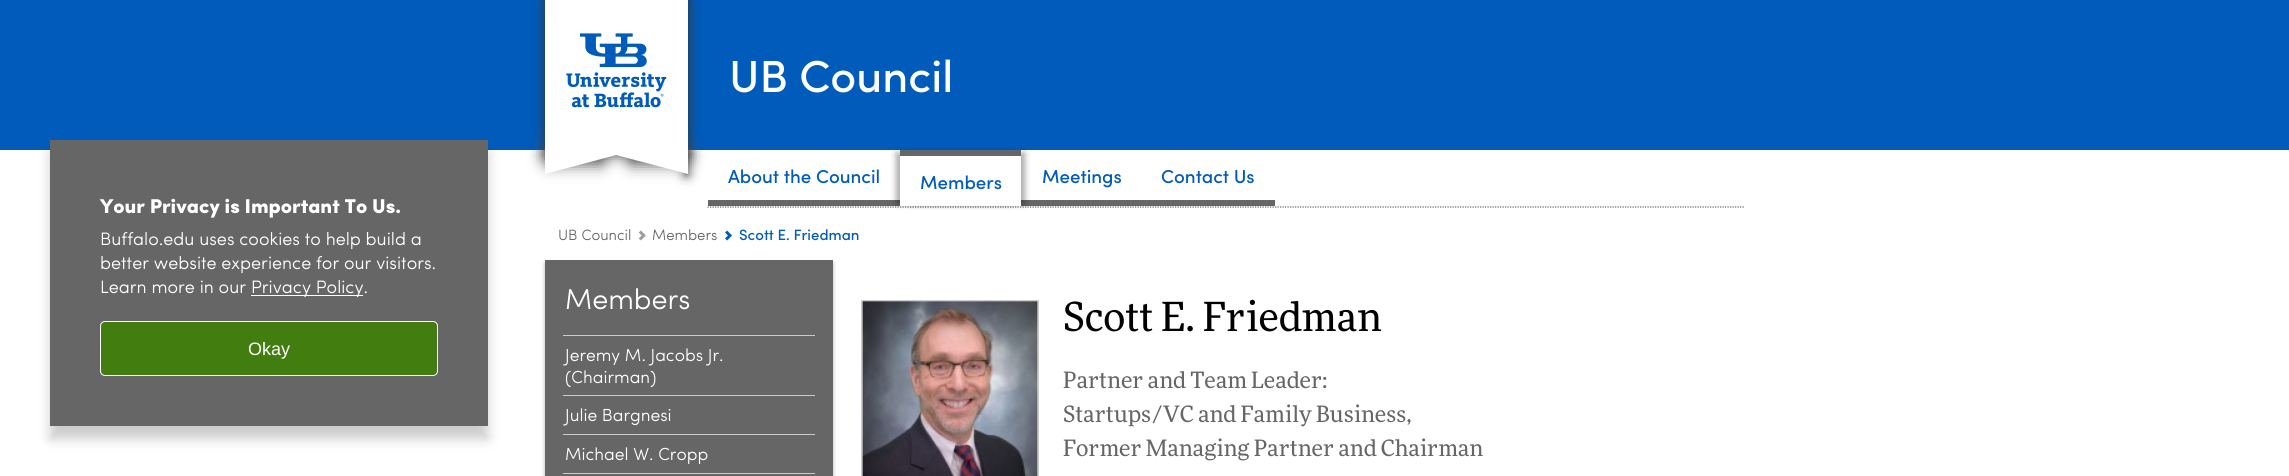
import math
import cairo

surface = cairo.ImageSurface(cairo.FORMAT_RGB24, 2289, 476)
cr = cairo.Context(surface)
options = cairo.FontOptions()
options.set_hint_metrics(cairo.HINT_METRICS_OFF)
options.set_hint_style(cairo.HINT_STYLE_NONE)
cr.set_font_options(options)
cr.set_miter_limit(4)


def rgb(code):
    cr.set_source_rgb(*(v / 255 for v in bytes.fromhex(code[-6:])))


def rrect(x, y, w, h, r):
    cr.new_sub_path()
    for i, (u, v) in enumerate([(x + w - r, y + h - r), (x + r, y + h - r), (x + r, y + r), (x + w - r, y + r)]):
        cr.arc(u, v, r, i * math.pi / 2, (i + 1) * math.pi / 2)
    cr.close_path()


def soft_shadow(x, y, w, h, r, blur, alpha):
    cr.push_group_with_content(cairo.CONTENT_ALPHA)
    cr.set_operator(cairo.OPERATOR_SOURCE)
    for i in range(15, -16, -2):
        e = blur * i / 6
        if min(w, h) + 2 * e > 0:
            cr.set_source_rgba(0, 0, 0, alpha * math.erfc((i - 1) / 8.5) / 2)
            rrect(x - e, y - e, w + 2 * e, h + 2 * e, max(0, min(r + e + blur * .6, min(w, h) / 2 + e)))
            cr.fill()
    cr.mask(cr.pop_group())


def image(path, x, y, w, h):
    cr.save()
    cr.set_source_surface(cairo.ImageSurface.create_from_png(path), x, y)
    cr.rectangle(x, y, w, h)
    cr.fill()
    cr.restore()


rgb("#ffffff")
cr.paint()
rgb("#005bbb")
cr.rectangle(0, 0, 2289, 150)
cr.fill()
rgb("#000000")
soft_shadow(50, 153, 438, 286, 0, 6, 0.2)
rgb("#666666")
cr.rectangle(50, 140, 438, 286)
cr.fill()
rgb("#ffffff")
cr.rectangle(251, 295, 112, 1)
cr.fill()
rgb("#427d10")
rrect(100.5, 321.5, 337, 54, 4.5)
cr.fill_preserve()
rgb("#ffffff")
cr.set_line_width(1)
cr.stroke()
rgb("#333333")
soft_shadow(545, 0, 143, 155, 0, 6, 1)
rgb("#555555")
soft_shadow(545, 149, 59, 15, 2.5, 8, 1)
soft_shadow(629, 149, 59, 15, 2.5, 8, 1)
rgb("#333333")
soft_shadow(686, 155, 1, 19, 0, 6, 1)
rgb("#ffffff")
cr.rectangle(545, 0, 143, 155)
cr.fill()
image("img/1.png", 566, 33, 101, 75)
cr.new_path()
cr.move_to(688, 155)
cr.line_to(688, 174)
cr.line_to(616, 155)
cr.close_path()
cr.fill()
cr.new_path()
cr.move_to(545, 174)
cr.line_to(545, 155)
cr.line_to(616, 155)
cr.close_path()
cr.fill()
cr.new_path()
cr.move_to(707.5, 207)
cr.line_to(1745, 207)
rgb("#666666")
cr.set_line_width(1.2)
cr.set_dash([1.25, 1.25])
cr.stroke()
cr.rectangle(708, 200, 192, 6)
cr.fill()
cr.rectangle(1021, 200, 254, 6)
cr.fill()
cr.save()
cr.set_fill_rule(cairo.FILL_RULE_EVEN_ODD)
cr.new_path()
cr.move_to(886, 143)
cr.line_to(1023, 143)
cr.line_to(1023, 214)
cr.line_to(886, 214)
cr.close_path()
cr.move_to(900, 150)
cr.line_to(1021, 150)
cr.line_to(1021, 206)
cr.line_to(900, 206)
cr.close_path()
cr.clip()
rgb("#000000")
soft_shadow(896, 153, 117, 51, 0, 3, 0.33)
cr.restore()
cr.save()
cr.set_fill_rule(cairo.FILL_RULE_EVEN_ODD)
cr.new_path()
cr.move_to(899, 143)
cr.line_to(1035, 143)
cr.line_to(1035, 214)
cr.line_to(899, 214)
cr.close_path()
cr.move_to(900, 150)
cr.line_to(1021, 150)
cr.line_to(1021, 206)
cr.line_to(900, 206)
cr.close_path()
cr.clip()
rgb("#000000")
soft_shadow(909, 153, 116, 51, 0, 3, 0.33)
cr.restore()
cr.rectangle(900, 150, 121, 6)
cr.fill()
image("img/2.png", 638, 230, 8, 11)
image("img/3.png", 725, 230, 7, 11)
rgb("#000000")
soft_shadow(545, 263, 288, 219, 0, 2, 0.3)
for x, y, w, h, color in [
    (545, 260, 288, 216, "#666666"),
    (563, 335, 252, 1, "#cbcbcb"),
    (563, 395, 252, 1, "#cbcbcb"),
    (563, 434, 252, 1, "#cbcbcb"),
    (563, 473, 252, 1, "#cbcbcb"),
]:
    rgb(color)
    cr.rectangle(x, y, w, h)
    cr.fill()
cr.rectangle(861.5, 300.5, 177, 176)
rgb("#cccccc")
cr.set_line_width(1)
cr.set_dash([])
cr.stroke()
image("img/4.png", 862, 301, 176, 175)
cr.select_font_face("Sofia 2")
cr.set_font_size(20)
rgb("#ffffff")
cr.move_to(100, 213)
cr.show_text("Your Privacy is Important To Us.")
cr.select_font_face("Sofia")
cr.set_font_size(18)
for x, y, s in [
    (100, 245, "Buffalo.edu uses cookies to help build a"),
    (100, 269, "better website experience for our visitors."),
    (100, 293, "Learn more in our"),
    (251, 293, "Privacy Policy."),
]:
    cr.move_to(x, y)
    cr.show_text(s)
cr.select_font_face("Liberation Sans")
cr.move_to(248, 355)
cr.show_text("Okay")
cr.select_font_face("Sofia Medium")
cr.set_font_size(45)
cr.move_to(729, 92)
cr.show_text("UB Council")
cr.set_font_size(18.75)
rgb("#005bbb")
for x, y, s in [
    (728, 183, "About the Council"),
    (920, 189, "Members"),
    (1042, 183, "Meetings"),
    (1161, 183, "Contact Us"),
]:
    cr.move_to(x, y)
    cr.show_text(s)
cr.select_font_face("Sofia")
cr.set_font_size(15)
rgb("#666666")
cr.move_to(558, 240)
cr.show_text("UB Council")
cr.move_to(652, 240)
cr.show_text("Members")
cr.select_font_face("Sofia Medium")
rgb("#005bbb")
cr.move_to(739, 240)
cr.show_text("Scott E. Friedman")
cr.select_font_face("Sofia")
cr.set_font_size(28.75)
rgb("#ffffff")
cr.move_to(565, 309)
cr.show_text("Members")
cr.set_font_size(17.5)
for x, y, s in [
    (565, 361, "Jeremy M. Jacobs Jr."),
    (565, 383, "(Chairman)"),
    (565, 421, "Julie Bargnesi"),
    (565, 460, "Michael W. Cropp"),
]:
    cr.move_to(x, y)
    cr.show_text(s)
cr.select_font_face("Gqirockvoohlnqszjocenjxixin")
cr.set_font_size(40)
rgb("#000000")
cr.move_to(1063, 331)
cr.show_text("Scott E. Friedman")
cr.set_font_size(22.5)
rgb("#666666")
for x, y, s in [
    (1063, 388, "Partner and Team Leader:"),
    (1063, 422, "Startups/VC and Family Business,"),
    (1063, 456, "Former Managing Partner and Chairman"),
]:
    cr.move_to(x, y)
    cr.show_text(s)
surface.write_to_png("page.png")
